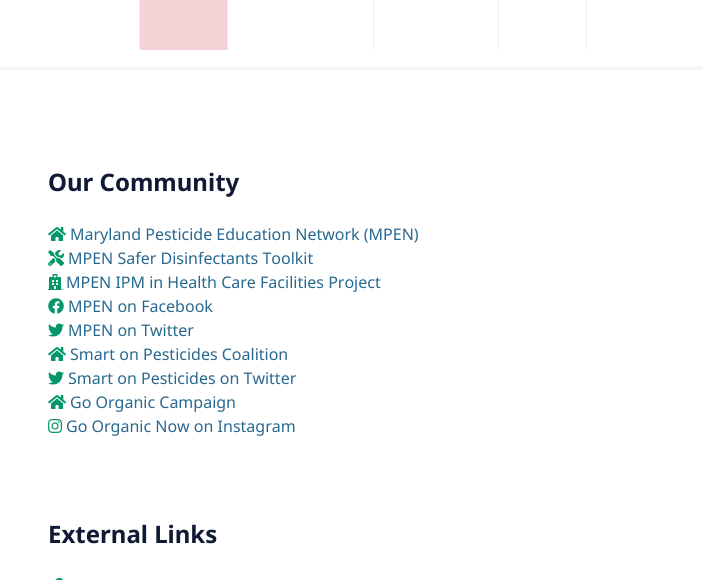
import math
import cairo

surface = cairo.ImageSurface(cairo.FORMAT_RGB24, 703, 580)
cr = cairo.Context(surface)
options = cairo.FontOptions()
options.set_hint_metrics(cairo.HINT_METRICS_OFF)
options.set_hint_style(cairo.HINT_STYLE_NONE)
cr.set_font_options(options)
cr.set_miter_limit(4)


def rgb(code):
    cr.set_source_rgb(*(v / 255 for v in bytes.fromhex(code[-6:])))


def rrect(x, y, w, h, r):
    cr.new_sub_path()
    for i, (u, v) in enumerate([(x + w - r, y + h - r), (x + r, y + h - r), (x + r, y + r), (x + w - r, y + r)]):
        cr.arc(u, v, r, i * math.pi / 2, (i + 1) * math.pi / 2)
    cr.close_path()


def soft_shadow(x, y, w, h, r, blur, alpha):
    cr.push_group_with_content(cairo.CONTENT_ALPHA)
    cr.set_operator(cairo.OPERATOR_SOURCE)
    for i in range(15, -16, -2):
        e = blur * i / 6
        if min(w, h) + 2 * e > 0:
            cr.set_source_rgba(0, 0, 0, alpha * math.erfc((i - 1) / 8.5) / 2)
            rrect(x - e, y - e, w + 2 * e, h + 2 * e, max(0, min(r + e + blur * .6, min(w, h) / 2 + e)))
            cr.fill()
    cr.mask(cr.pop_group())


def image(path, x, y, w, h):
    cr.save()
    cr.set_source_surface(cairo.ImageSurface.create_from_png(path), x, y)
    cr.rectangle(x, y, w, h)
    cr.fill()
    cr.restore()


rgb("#ffffff")
cr.paint()
for x, y, w, h, color in [
    (139, 0, 1, 50, "#eeeeee"),
    (140, 0, 87, 50, "#f3d3d5"),
    (227, 0, 1, 50, "#eeeeee"),
    (373, 0, 1, 50, "#eeeeee"),
    (498, 0, 1, 50, "#eeeeee"),
    (586, 0, 1, 50, "#eeeeee"),
]:
    rgb(color)
    cr.rectangle(x, y, w, h)
    cr.fill()
cr.save()
cr.rectangle(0, 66, 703, 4)
cr.clip()
rgb("#000000")
soft_shadow(0, 67, 703, 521, 0, 2.5, 0.06)
cr.restore()
image("img/1.png", 48, 227, 18, 14)
image("img/2.png", 48, 250, 16, 16)
image("img/3.png", 48, 274, 14, 16)
image("img/4.png", 48, 298, 16, 16)
image("img/5.png", 48, 323, 16, 14)
image("img/1.png", 48, 347, 18, 14)
image("img/5.png", 48, 371, 16, 14)
image("img/1.png", 48, 395, 18, 14)
image("img/6.png", 48, 419, 15, 14)
image("img/7.png", 55, 578, 8, 2)
cr.select_font_face("Noto Sans", cairo.FONT_SLANT_NORMAL, cairo.FONT_WEIGHT_BOLD)
cr.set_font_size(24)
rgb("#111a35")
cr.move_to(48, 191)
cr.show_text("Our Community")
cr.select_font_face("Noto Sans")
cr.set_font_size(16)
rgb("#276890")
for x, y, s in [
    (70, 240, "Maryland Pesticide Education Network (MPEN)"),
    (68, 264, "MPEN Safer Disinfectants Toolkit"),
    (66, 288, "MPEN IPM in Health Care Facilities Project"),
    (68, 312, "MPEN on Facebook"),
    (68, 336, "MPEN on Twitter"),
    (70, 360, "Smart on Pesticides Coalition"),
    (68, 384, "Smart on Pesticides on Twitter"),
    (70, 408, "Go Organic Campaign"),
    (66, 432, "Go Organic Now on Instagram"),
]:
    cr.move_to(x, y)
    cr.show_text(s)
cr.select_font_face("Noto Sans", cairo.FONT_SLANT_NORMAL, cairo.FONT_WEIGHT_BOLD)
cr.set_font_size(24)
rgb("#111a35")
cr.move_to(48, 543)
cr.show_text("External Links")
surface.write_to_png("page.png")
